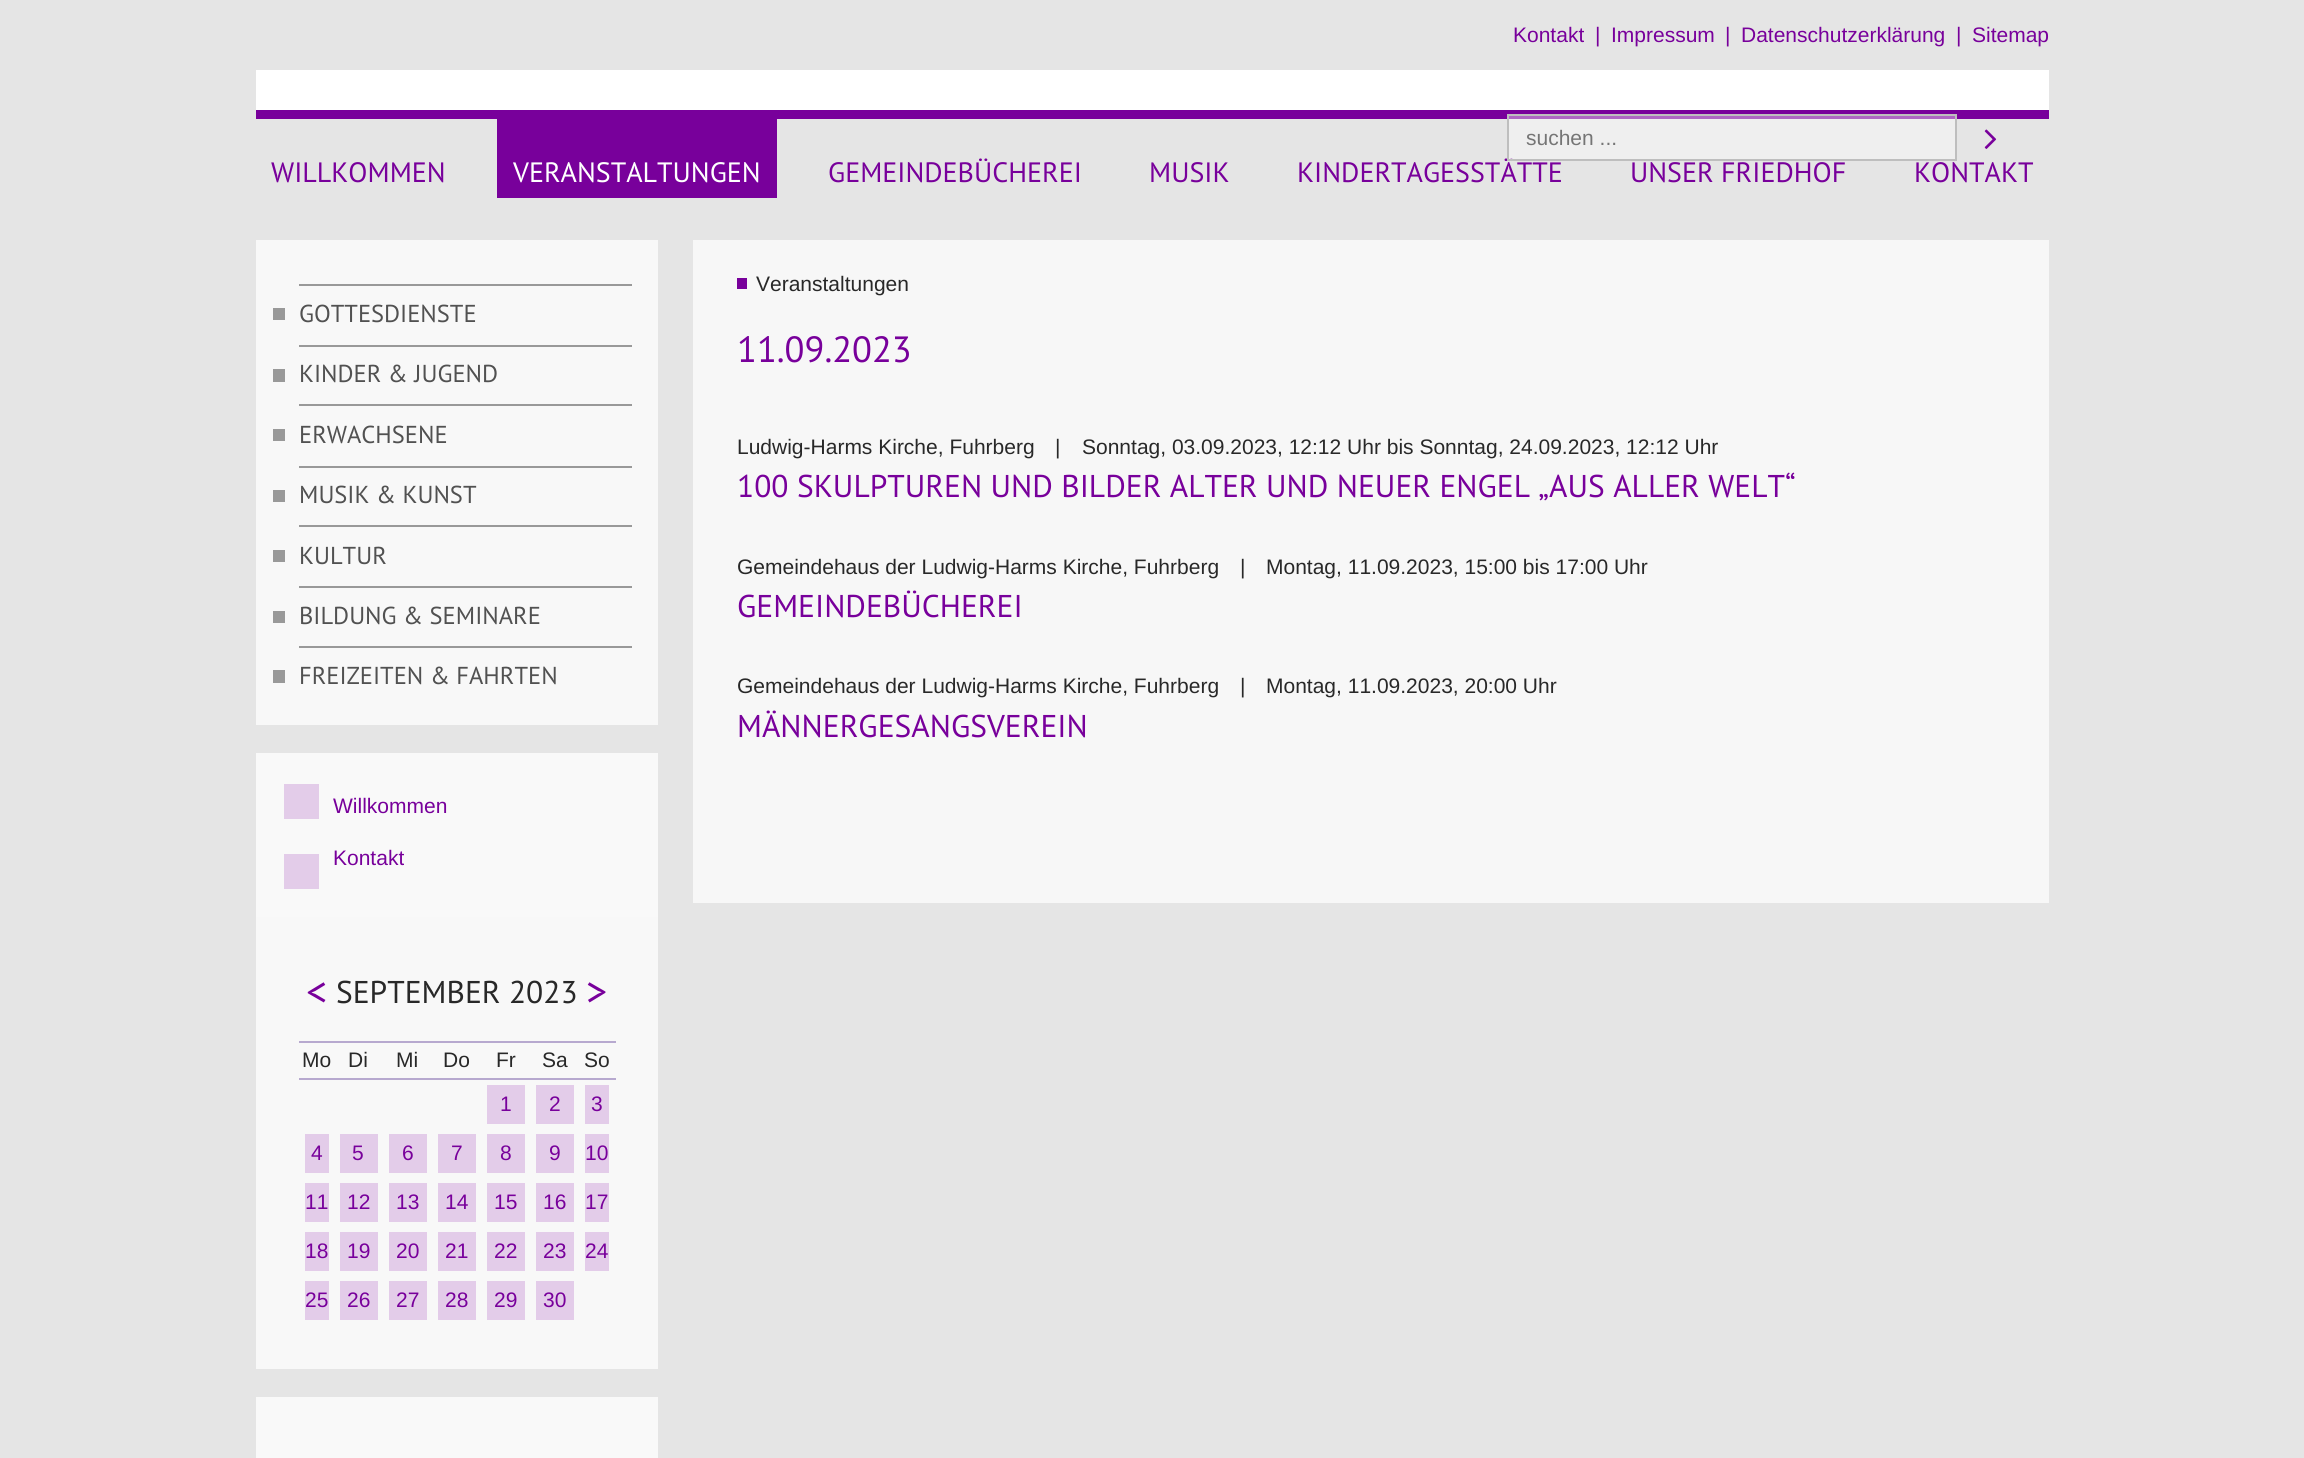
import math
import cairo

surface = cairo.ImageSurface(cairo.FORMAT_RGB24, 2304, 1458)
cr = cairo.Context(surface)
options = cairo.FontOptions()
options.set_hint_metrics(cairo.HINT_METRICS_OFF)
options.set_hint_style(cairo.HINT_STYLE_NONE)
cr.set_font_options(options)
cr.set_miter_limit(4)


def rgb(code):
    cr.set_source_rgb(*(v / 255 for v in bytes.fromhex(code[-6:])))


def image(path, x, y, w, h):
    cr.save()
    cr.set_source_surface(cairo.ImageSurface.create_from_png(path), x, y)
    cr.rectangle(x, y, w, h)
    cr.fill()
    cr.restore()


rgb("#e5e5e5")
cr.paint()
rgb("#78009b")
cr.rectangle(256, 110, 1793, 9)
cr.fill()
rgb("#ffffff")
cr.rectangle(256, 70, 1793, 40)
cr.fill()
image("img/1.png", 1984, 129, 13, 20)
for x, y, w, h, color in [
    (497, 119, 280, 79, "#78009b"),
    (256, 240, 402, 485, "#f8f8f8"),
    (273, 308, 12, 12, "#999999"),
    (299, 284, 333, 2, "#999999"),
    (273, 369, 12, 13, "#999999"),
    (299, 345, 333, 2, "#999999"),
    (273, 429, 12, 12, "#999999"),
    (299, 404, 333, 2, "#999999"),
    (273, 490, 12, 12, "#999999"),
    (299, 466, 333, 2, "#999999"),
    (273, 550, 12, 12, "#999999"),
    (299, 525, 333, 2, "#999999"),
    (273, 611, 12, 12, "#999999"),
    (299, 586, 333, 2, "#999999"),
    (273, 670, 12, 13, "#999999"),
    (299, 646, 333, 2, "#999999"),
    (256, 753, 402, 164, "#f9f9f9"),
    (284, 784, 35, 35, "#e3cce9"),
    (284, 854, 35, 35, "#e3cce9"),
    (256, 917, 402, 452, "#f8f8f8"),
    (299, 1041, 317, 2, "#b7a9cf"),
    (299, 1078, 317, 2, "#b7a9cf"),
    (487, 1085, 38, 39, "#e3cce9"),
    (536, 1085, 38, 39, "#e3cce9"),
    (585, 1085, 24, 39, "#e3cce9"),
    (305, 1134, 24, 39, "#e3cce9"),
    (340, 1134, 38, 39, "#e3cce9"),
    (389, 1134, 38, 39, "#e3cce9"),
    (438, 1134, 38, 39, "#e3cce9"),
    (487, 1134, 38, 39, "#e3cce9"),
    (536, 1134, 38, 39, "#e3cce9"),
    (585, 1134, 24, 39, "#e3cce9"),
    (305, 1183, 24, 39, "#e3cce9"),
    (340, 1183, 38, 39, "#e3cce9"),
    (389, 1183, 38, 39, "#e3cce9"),
    (438, 1183, 38, 39, "#e3cce9"),
    (487, 1183, 38, 39, "#e3cce9"),
    (536, 1183, 38, 39, "#e3cce9"),
    (585, 1183, 24, 39, "#e3cce9"),
    (305, 1232, 24, 39, "#e3cce9"),
    (340, 1232, 38, 39, "#e3cce9"),
    (389, 1232, 38, 39, "#e3cce9"),
    (438, 1232, 38, 39, "#e3cce9"),
    (487, 1232, 38, 39, "#e3cce9"),
    (536, 1232, 38, 39, "#e3cce9"),
    (585, 1232, 24, 39, "#e3cce9"),
    (305, 1281, 24, 39, "#e3cce9"),
    (340, 1281, 38, 39, "#e3cce9"),
    (389, 1281, 38, 39, "#e3cce9"),
    (438, 1281, 38, 39, "#e3cce9"),
    (487, 1281, 38, 39, "#e3cce9"),
    (536, 1281, 38, 39, "#e3cce9"),
    (256, 1397, 402, 61, "#f9f9f9"),
    (693, 240, 1356, 663, "#f7f7f7"),
    (737, 278, 10, 11, "#78009b"),
]:
    rgb(color)
    cr.rectangle(x, y, w, h)
    cr.fill()
cr.select_font_face("Liberation Sans")
cr.set_font_size(21)
for x, y, s in [
    (1513, 42, "Kontakt"),
    (1595, 42, "|"),
    (1611, 42, "Impressum"),
    (1725, 42, "|"),
    (1741, 42, "Datenschutzerklärung"),
    (1956, 42, "|"),
    (1972, 42, "Sitemap"),
]:
    cr.move_to(x, y)
    cr.show_text(s)
cr.select_font_face("PT Sans")
cr.set_font_size(28)
cr.move_to(271, 182)
cr.show_text("WILLKOMMEN")
rgb("#ffffff")
cr.move_to(513, 182)
cr.show_text("VERANSTALTUNGEN")
rgb("#78009b")
for x, y, s in [
    (828, 182, "GEMEINDEBÜCHEREI"),
    (1149, 182, "MUSIK"),
    (1297, 182, "KINDERTAGESSTÄTTE"),
]:
    cr.move_to(x, y)
    cr.show_text(s)
cr.set_source_rgba(1, 1, 1, 0.4)
cr.rectangle(1508, 115, 448, 45)
cr.fill_preserve()
rgb("#bebebe")
cr.stroke()
cr.select_font_face("Liberation Sans")
cr.set_font_size(21)
rgb("#757575")
cr.move_to(1526, 145)
cr.show_text("suchen ...")
cr.select_font_face("PT Sans")
cr.set_font_size(28)
rgb("#78009b")
cr.move_to(1630, 182)
cr.show_text("UNSER FRIEDHOF")
cr.move_to(1914, 182)
cr.show_text("KONTAKT")
cr.set_font_size(24.5)
rgb("#515151")
for x, y, s in [
    (299, 322, "GOTTESDIENSTE"),
    (299, 382, "KINDER & JUGEND"),
    (299, 443, "ERWACHSENE"),
    (299, 503, "MUSIK & KUNST"),
    (299, 564, "KULTUR"),
    (299, 624, "BILDUNG & SEMINARE"),
    (299, 684, "FREIZEITEN & FAHRTEN"),
]:
    cr.move_to(x, y)
    cr.show_text(s)
cr.select_font_face("Liberation Sans")
cr.set_font_size(21)
rgb("#78009b")
cr.move_to(333, 813)
cr.show_text("Willkommen")
cr.move_to(333, 865)
cr.show_text("Kontakt")
cr.select_font_face("PT Sans")
cr.set_font_size(42)
cr.move_to(306, 1006)
cr.show_text("<")
cr.set_font_size(31.5)
rgb("#282828")
cr.move_to(336, 1003)
cr.show_text("SEPTEMBER 2023")
cr.set_font_size(42)
rgb("#78009b")
cr.move_to(586, 1006)
cr.show_text(">")
cr.select_font_face("Liberation Sans")
cr.set_font_size(21)
rgb("#282828")
for x, y, s in [
    (302, 1067, "Mo"),
    (348, 1067, "Di"),
    (396, 1067, "Mi"),
    (443, 1067, "Do"),
    (496, 1067, "Fr"),
    (542, 1067, "Sa"),
    (584, 1067, "So"),
]:
    cr.move_to(x, y)
    cr.show_text(s)
rgb("#78009b")
for x, y, s in [
    (500, 1111, "1"),
    (549, 1111, "2"),
    (591, 1111, "3"),
    (311, 1160, "4"),
    (352, 1160, "5"),
    (402, 1160, "6"),
    (451, 1160, "7"),
    (500, 1160, "8"),
    (549, 1160, "9"),
    (585, 1160, "10"),
    (305, 1209, "11"),
    (347, 1209, "12"),
    (396, 1209, "13"),
    (445, 1209, "14"),
    (494, 1209, "15"),
    (543, 1209, "16"),
    (585, 1209, "17"),
    (305, 1258, "18"),
    (347, 1258, "19"),
    (396, 1258, "20"),
    (445, 1258, "21"),
    (494, 1258, "22"),
    (543, 1258, "23"),
    (585, 1258, "24"),
    (305, 1307, "25"),
    (347, 1307, "26"),
    (396, 1307, "27"),
    (445, 1307, "28"),
    (494, 1307, "29"),
    (543, 1307, "30"),
]:
    cr.move_to(x, y)
    cr.show_text(s)
rgb("#282828")
cr.move_to(756, 291)
cr.show_text("Veranstaltungen")
cr.select_font_face("PT Sans")
cr.set_font_size(36.5)
rgb("#78009b")
cr.move_to(737, 362)
cr.show_text("11.09.2023")
cr.select_font_face("Liberation Sans")
cr.set_font_size(21)
rgb("#282828")
for x, y, s in [
    (737, 454, "Ludwig-Harms Kirche, Fuhrberg"),
    (1055, 454, "|"),
    (1082, 454, "Sonntag, 03.09.2023, 12:12 Uhr bis Sonntag, 24.09.2023, 12:12 Uhr"),
]:
    cr.move_to(x, y)
    cr.show_text(s)
cr.select_font_face("PT Sans")
cr.set_font_size(31.5)
rgb("#78009b")
cr.move_to(737, 497)
cr.show_text("100 SKULPTUREN UND BILDER ALTER UND NEUER ENGEL „AUS ALLER WELT“")
cr.select_font_face("Liberation Sans")
cr.set_font_size(21)
rgb("#282828")
for x, y, s in [
    (737, 574, "Gemeindehaus der Ludwig-Harms Kirche, Fuhrberg"),
    (1240, 574, "|"),
    (1266, 574, "Montag, 11.09.2023, 15:00 bis 17:00 Uhr"),
]:
    cr.move_to(x, y)
    cr.show_text(s)
cr.select_font_face("PT Sans")
cr.set_font_size(31.5)
rgb("#78009b")
cr.move_to(737, 617)
cr.show_text("GEMEINDEBÜCHEREI")
cr.select_font_face("Liberation Sans")
cr.set_font_size(21)
rgb("#282828")
for x, y, s in [
    (737, 693, "Gemeindehaus der Ludwig-Harms Kirche, Fuhrberg"),
    (1240, 693, "|"),
    (1266, 693, "Montag, 11.09.2023, 20:00 Uhr"),
]:
    cr.move_to(x, y)
    cr.show_text(s)
cr.select_font_face("PT Sans")
cr.set_font_size(31.5)
rgb("#78009b")
cr.move_to(737, 737)
cr.show_text("MÄNNERGESANGSVEREIN")
surface.write_to_png("page.png")
